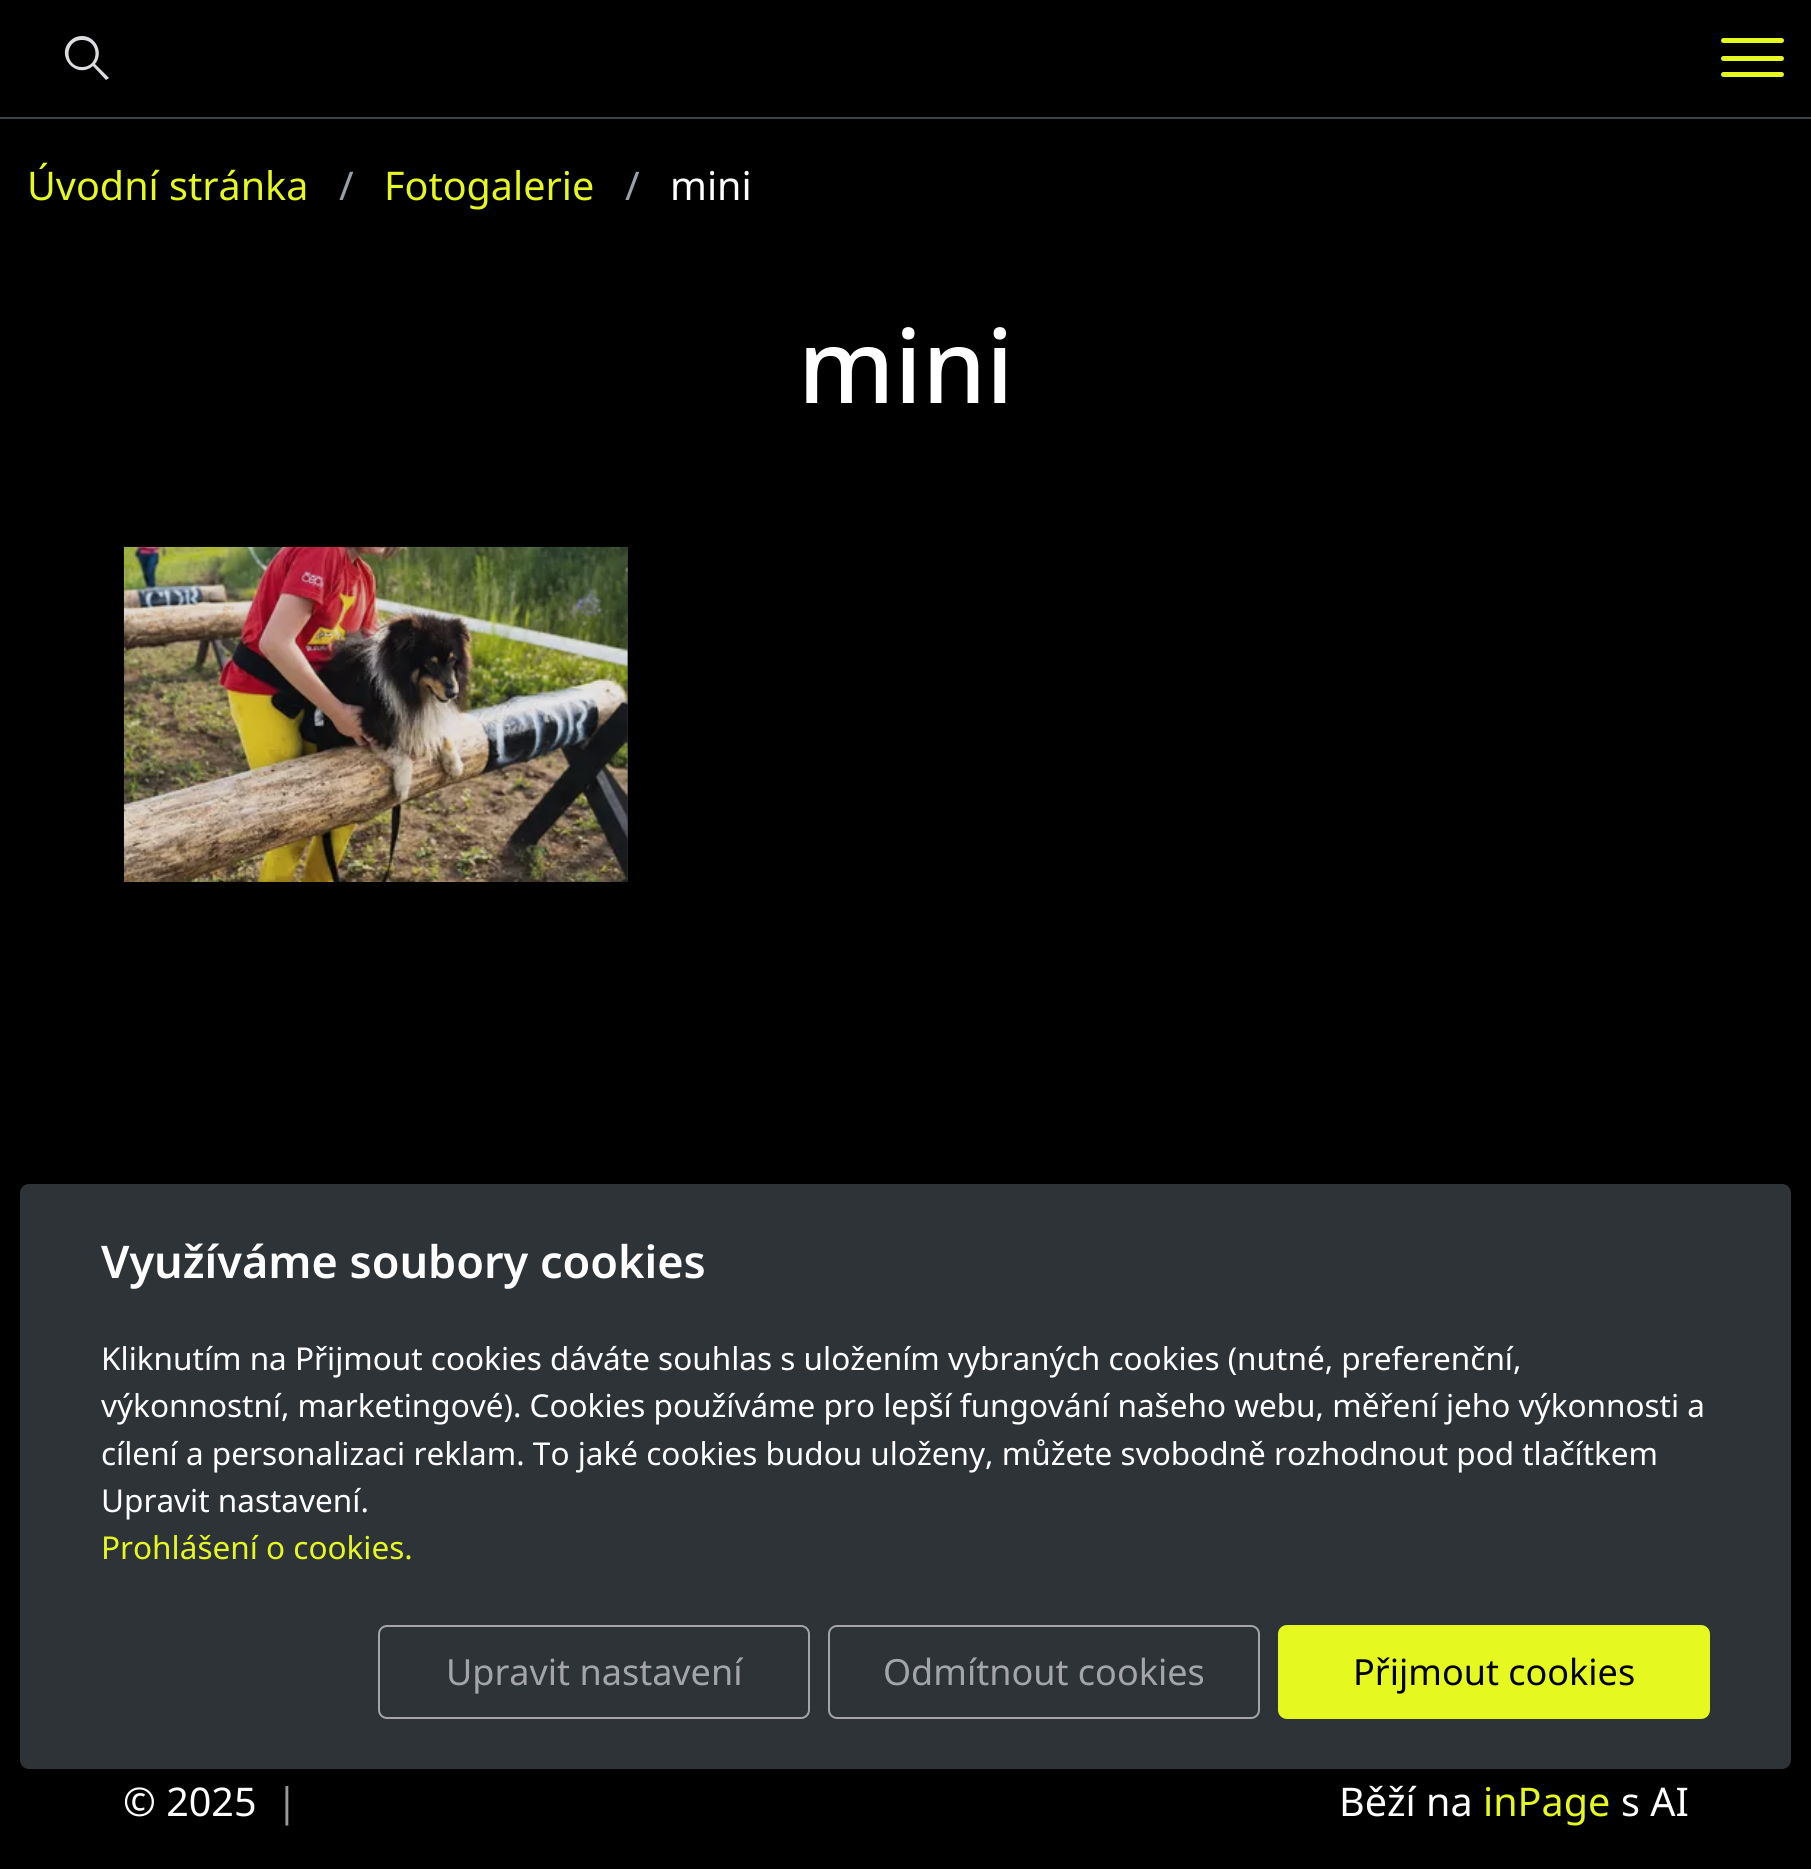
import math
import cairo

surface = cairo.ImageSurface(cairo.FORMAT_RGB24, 1811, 1869)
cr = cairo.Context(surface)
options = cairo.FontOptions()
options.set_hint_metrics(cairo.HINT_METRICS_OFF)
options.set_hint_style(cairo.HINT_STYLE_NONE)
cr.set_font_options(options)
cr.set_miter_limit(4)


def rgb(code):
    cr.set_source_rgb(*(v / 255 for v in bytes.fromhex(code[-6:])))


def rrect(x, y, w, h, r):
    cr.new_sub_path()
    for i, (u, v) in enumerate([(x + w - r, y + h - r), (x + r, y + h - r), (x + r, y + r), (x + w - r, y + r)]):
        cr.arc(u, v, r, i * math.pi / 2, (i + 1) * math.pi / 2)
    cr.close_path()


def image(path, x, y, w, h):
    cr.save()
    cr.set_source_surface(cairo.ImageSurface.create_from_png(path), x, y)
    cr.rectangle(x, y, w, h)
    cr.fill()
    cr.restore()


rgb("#000000")
cr.paint()
rgb("#3c4248")
cr.rectangle(0, 117, 1811, 2)
cr.fill()
rgb("#dcdde0")
cr.new_path()
cr.move_to(82, 36)
cr.curve_to(96, 36, 104, 53, 95, 64)
cr.line_to(109, 78)
cr.line_to(106, 80)
cr.line_to(93, 66)
cr.curve_to(76, 80, 55, 56, 70, 41)
cr.curve_to(73, 38, 77, 36, 82, 36)
cr.close_path()
cr.move_to(82, 40)
cr.curve_to(64, 40, 64, 67, 82, 67)
cr.curve_to(100, 67, 100, 40, 82, 40)
cr.close_path()
cr.fill()
rgb("#e5f820")
rrect(1721, 38, 63, 5, 2.5)
cr.fill()
rrect(1721, 56, 63, 5, 2.5)
cr.fill()
rrect(1721, 72, 63, 5, 2.5)
cr.fill()
rgb("#2e3338")
cr.rectangle(627, 547, 1, 335)
cr.fill()
image("img/1.png", 123, 546, 505, 336)
rrect(20, 1184, 1771, 585, 9)
cr.fill()
rrect(19, 1182, 1773, 588, 10)
cr.set_source_rgba(0, 0, 0, 0.2)
cr.stroke()
rrect(379, 1626, 430, 92, 8)
rgb("#a3a5a8")
cr.stroke()
rrect(829, 1626, 430, 92, 8)
cr.stroke()
rgb("#e5f820")
rrect(1279, 1626, 430, 92, 8)
cr.fill_preserve()
cr.stroke()
cr.select_font_face("Noto Sans")
cr.set_font_size(39.5)
cr.move_to(27, 200)
cr.show_text("Úvodní stránka")
rgb("#98a1a9")
cr.move_to(339, 200)
cr.show_text("/")
rgb("#e5f820")
cr.move_to(384, 200)
cr.show_text("Fotogalerie")
rgb("#98a1a9")
cr.move_to(625, 200)
cr.show_text("/")
rgb("#ffffff")
cr.move_to(670, 200)
cr.show_text("mini")
cr.select_font_face("Noto Sans Medium")
cr.set_font_size(102)
cr.move_to(798, 403)
cr.show_text("mini")
cr.select_font_face("Noto Sans SemiBold")
cr.set_font_size(45)
cr.move_to(101, 1278)
cr.show_text("Využíváme soubory cookies")
cr.select_font_face("Noto Sans")
cr.set_font_size(31.5)
for x, y, s in [
    (101, 1370, "Kliknutím na Přijmout cookies dáváte souhlas s uložením vybraných cookies (nutné, preferenční,"),
    (101, 1417, "výkonnostní, marketingové). Cookies používáme pro lepší fungování našeho webu, měření jeho výkonnosti a"),
    (101, 1465, "cílení a personalizaci reklam. To jaké cookies budou uloženy, můžete svobodně rozhodnout pod tlačítkem"),
    (101, 1512, "Upravit nastavení."),
]:
    cr.move_to(x, y)
    cr.show_text(s)
rgb("#e5f820")
cr.move_to(101, 1559)
cr.show_text("Prohlášení o cookies.")
cr.set_font_size(36)
rgb("#a3a5a8")
cr.move_to(446, 1685)
cr.show_text("Upravit nastavení")
cr.move_to(883, 1685)
cr.show_text("Odmítnout cookies")
rgb("#000000")
cr.move_to(1353, 1685)
cr.show_text("Přijmout cookies")
cr.set_font_size(39.5)
rgb("#ffffff")
cr.move_to(123, 1816)
cr.show_text("© 2025")
rgb("#999999")
cr.move_to(276, 1816)
cr.show_text("|")
rgb("#ffffff")
cr.move_to(1339, 1816)
cr.show_text("Běží na")
rgb("#e5f820")
cr.move_to(1483, 1816)
cr.show_text("inPage")
rgb("#ffffff")
cr.move_to(1621, 1816)
cr.show_text("s AI")
surface.write_to_png("page.png")
